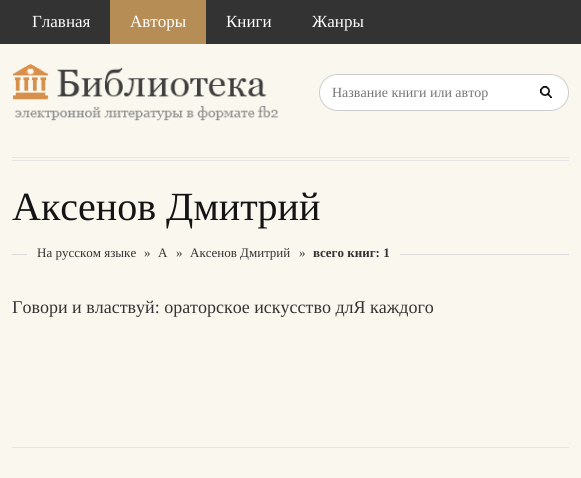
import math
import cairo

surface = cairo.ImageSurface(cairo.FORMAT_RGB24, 581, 478)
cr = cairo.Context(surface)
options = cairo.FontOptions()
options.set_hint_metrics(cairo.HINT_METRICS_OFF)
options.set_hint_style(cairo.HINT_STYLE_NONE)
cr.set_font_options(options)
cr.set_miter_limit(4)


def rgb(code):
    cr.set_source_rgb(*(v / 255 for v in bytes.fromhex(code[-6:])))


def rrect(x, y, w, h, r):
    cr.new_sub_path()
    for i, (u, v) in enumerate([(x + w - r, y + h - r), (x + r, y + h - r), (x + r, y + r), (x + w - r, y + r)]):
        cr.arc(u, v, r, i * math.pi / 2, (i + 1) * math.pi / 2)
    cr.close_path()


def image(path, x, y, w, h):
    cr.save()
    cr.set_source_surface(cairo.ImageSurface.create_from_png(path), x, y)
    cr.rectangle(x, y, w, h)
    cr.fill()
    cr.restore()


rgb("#faf7ee")
cr.paint()
for x, y, w, h, color in [
    (0, 0, 581, 44, "#333333"),
    (110, 0, 96, 44, "#b68e55"),
    (12, 157, 557, 1, "#e5e5e5"),
    (12, 160, 557, 1, "#e5e5e5"),
]:
    rgb(color)
    cr.rectangle(x, y, w, h)
    cr.fill()
image("img/1.png", 13, 64, 266, 57)
rgb("#ffffff")
rrect(319, 74, 250, 37, 18.5)
cr.fill()
image("img/2.png", 540, 86, 12, 12)
rrect(319.5, 74.5, 249, 36, 18)
rgb("#cccccc")
cr.set_line_width(1)
cr.stroke()
for x, y, w, h, color in [
    (12, 447, 557, 1, "#e5e5e5"),
    (12, 254, 557, 1, "#d9d9d9"),
    (27, 254, 373, 1, "#faf7ee"),
]:
    rgb(color)
    cr.rectangle(x, y, w, h)
    cr.fill()
cr.select_font_face("Liberation Serif")
cr.set_font_size(17)
rgb("#ffffff")
for x, y, s in [
    (32, 27, "Главная"),
    (130, 27, "Авторы"),
    (226, 27, "Книги"),
    (312, 27, "Жанры"),
]:
    cr.move_to(x, y)
    cr.show_text(s)
cr.set_font_size(14)
rgb("#757575")
cr.move_to(332, 97)
cr.show_text("Название книги или автор")
cr.set_font_size(40)
rgb("#141414")
cr.move_to(12, 220)
cr.show_text("Аксенов Дмитрий")
cr.set_font_size(13)
rgb("#333333")
for x, y, s in [
    (37, 257, "На русском языке"),
    (144, 257, "»"),
    (158, 257, "А"),
    (176, 257, "»"),
    (190, 257, "Аксенов Дмитрий"),
    (299, 257, "»"),
]:
    cr.move_to(x, y)
    cr.show_text(s)
cr.select_font_face("Liberation Serif", cairo.FONT_SLANT_NORMAL, cairo.FONT_WEIGHT_BOLD)
cr.move_to(313, 257)
cr.show_text("всего книг: 1")
cr.select_font_face("Liberation Serif")
cr.set_font_size(18)
cr.move_to(12, 313)
cr.show_text("Говори и властвуй: ораторское искусство длЯ каждого")
surface.write_to_png("page.png")
